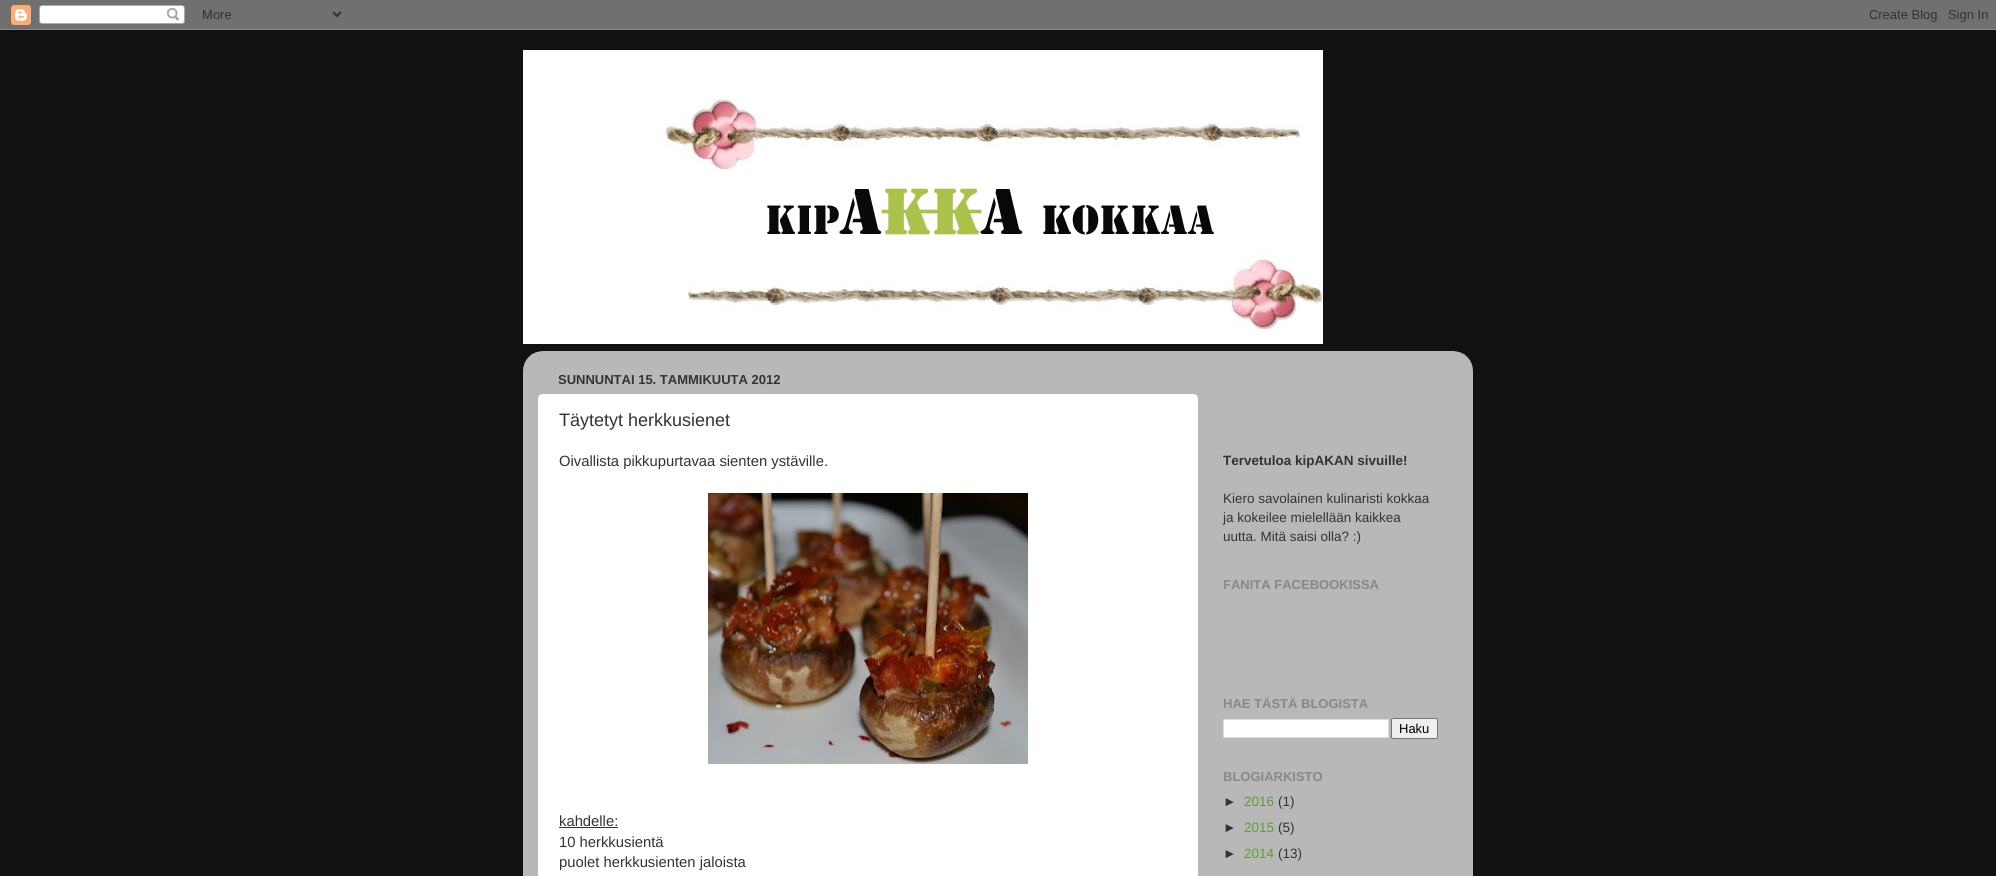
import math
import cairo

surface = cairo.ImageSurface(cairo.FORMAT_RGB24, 1996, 876)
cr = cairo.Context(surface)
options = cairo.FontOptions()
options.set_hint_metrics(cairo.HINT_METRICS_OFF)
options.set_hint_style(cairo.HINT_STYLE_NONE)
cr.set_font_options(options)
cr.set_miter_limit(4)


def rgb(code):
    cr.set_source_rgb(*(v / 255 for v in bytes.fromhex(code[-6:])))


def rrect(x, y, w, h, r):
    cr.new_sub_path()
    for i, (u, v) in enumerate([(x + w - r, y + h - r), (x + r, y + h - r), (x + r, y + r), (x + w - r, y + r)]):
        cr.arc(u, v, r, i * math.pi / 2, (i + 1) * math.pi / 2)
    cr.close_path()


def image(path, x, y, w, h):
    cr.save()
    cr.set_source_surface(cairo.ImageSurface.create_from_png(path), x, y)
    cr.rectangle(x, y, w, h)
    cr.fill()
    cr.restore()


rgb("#111111")
cr.paint()
image("img/1.png", 0, 0, 1996, 30)
image("img/2.png", 523, 50, 800, 294)
image("img/3.png", 523, 351, 950, 525)
rgb("#ffffff")
rrect(538.5, 394.5, 659, 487, 4.5)
cr.fill_preserve()
cr.set_line_width(1)
cr.stroke()
image("img/4.png", 708, 493, 320, 271)
rgb("#333333")
cr.rectangle(559, 827, 59, 1)
cr.fill()
rgb("#ffffff")
cr.rectangle(1223.5, 719.5, 165, 18)
cr.fill_preserve()
rgb("#dddddd")
cr.stroke()
rgb("#efefef")
rrect(1391.5, 718.5, 46, 20, 1.5)
cr.fill_preserve()
rgb("#767676")
cr.stroke()
cr.select_font_face("Liberation Sans", cairo.FONT_SLANT_NORMAL, cairo.FONT_WEIGHT_BOLD)
cr.set_font_size(13)
rgb("#333333")
cr.move_to(558, 384)
cr.show_text("SUNNUNTAI 15. TAMMIKUUTA 2012")
cr.select_font_face("Liberation Sans")
cr.set_font_size(18)
cr.move_to(559, 426)
cr.show_text("Täytetyt herkkusienet")
cr.set_font_size(14.8)
for x, y, s in [
    (559, 466, "Oivallista pikkupurtavaa sienten ystäville."),
    (559, 826, "kahdelle:"),
    (559, 847, "10 herkkusientä"),
    (559, 867, "puolet herkkusienten jaloista"),
]:
    cr.move_to(x, y)
    cr.show_text(s)
cr.select_font_face("Liberation Sans", cairo.FONT_SLANT_NORMAL, cairo.FONT_WEIGHT_BOLD)
cr.set_font_size(13.5)
cr.move_to(1223, 465)
cr.show_text("Tervetuloa kipAKAN sivuille!")
cr.select_font_face("Liberation Sans")
for x, y, s in [
    (1223, 503, "Kiero savolainen kulinaristi kokkaa"),
    (1223, 522, "ja kokeilee mielellään kaikkea"),
    (1223, 541, "uutta. Mitä saisi olla? :)"),
]:
    cr.move_to(x, y)
    cr.show_text(s)
cr.select_font_face("Liberation Sans", cairo.FONT_SLANT_NORMAL, cairo.FONT_WEIGHT_BOLD)
cr.set_font_size(13)
rgb("#888888")
cr.move_to(1223, 589)
cr.show_text("FANITA FACEBOOKISSA")
cr.move_to(1223, 708)
cr.show_text("HAE TÄSTÄ BLOGISTA")
cr.select_font_face("Liberation Sans")
rgb("#000000")
cr.move_to(1399, 733)
cr.show_text("Haku")
cr.select_font_face("Liberation Sans", cairo.FONT_SLANT_NORMAL, cairo.FONT_WEIGHT_BOLD)
rgb("#888888")
cr.move_to(1223, 781)
cr.show_text("BLOGIARKISTO")
cr.select_font_face("Liberation Sans")
cr.set_font_size(13.5)
rgb("#333333")
cr.move_to(1223, 806)
cr.show_text("►")
rgb("#669933")
cr.move_to(1244, 806)
cr.show_text("2016")
rgb("#333333")
cr.move_to(1278, 806)
cr.show_text("(1)")
cr.move_to(1223, 832)
cr.show_text("►")
rgb("#669933")
cr.move_to(1244, 832)
cr.show_text("2015")
rgb("#333333")
cr.move_to(1278, 832)
cr.show_text("(5)")
cr.move_to(1223, 858)
cr.show_text("►")
rgb("#669933")
cr.move_to(1244, 858)
cr.show_text("2014")
rgb("#333333")
cr.move_to(1278, 858)
cr.show_text("(13)")
surface.write_to_png("page.png")
